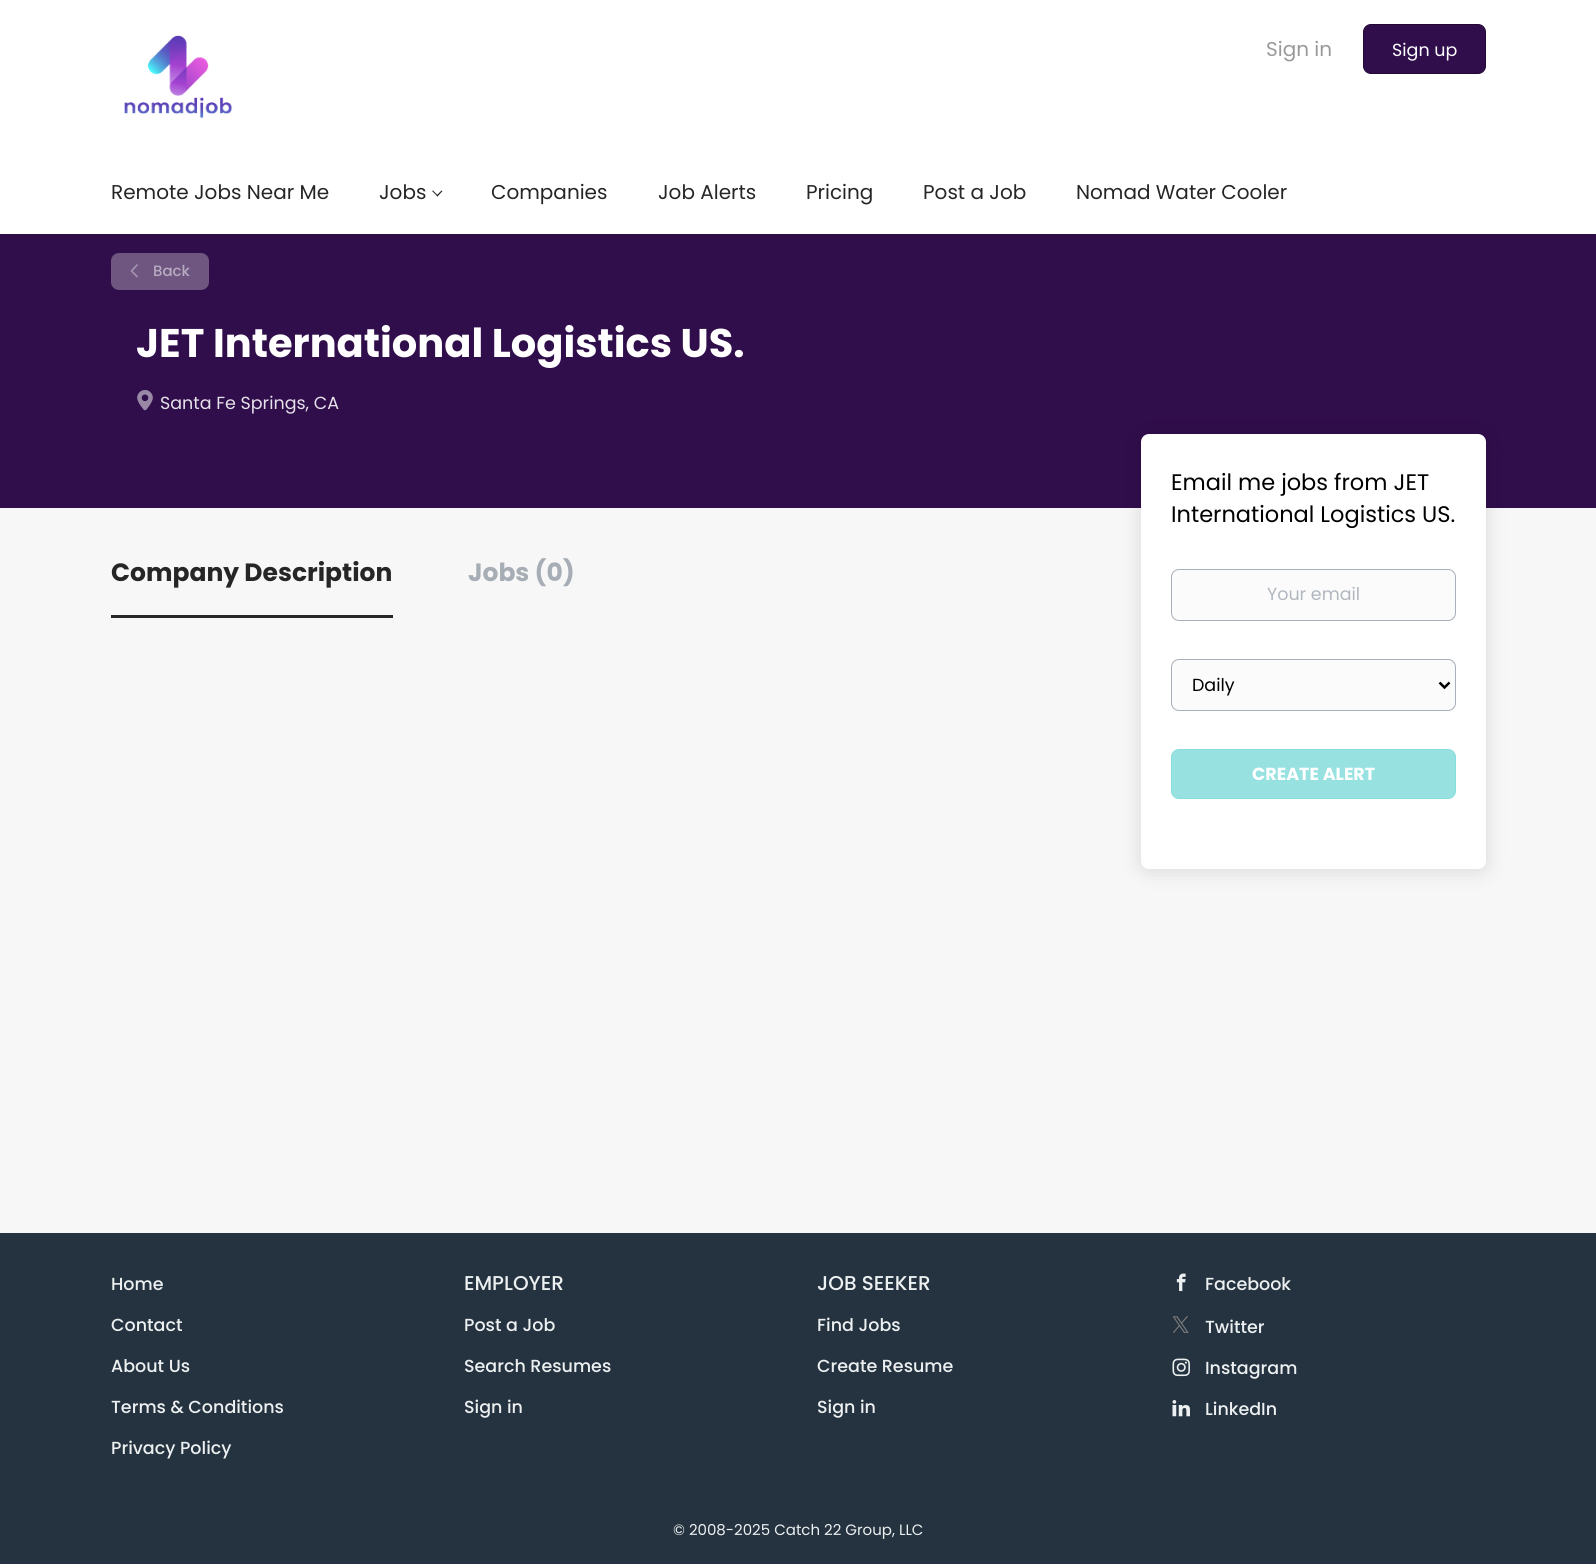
import math
import cairo

surface = cairo.ImageSurface(cairo.FORMAT_RGB24, 1596, 1564)
cr = cairo.Context(surface)
options = cairo.FontOptions()
options.set_hint_metrics(cairo.HINT_METRICS_OFF)
options.set_hint_style(cairo.HINT_STYLE_NONE)
cr.set_font_options(options)
cr.set_miter_limit(4)


def rgb(code):
    cr.set_source_rgb(*(v / 255 for v in bytes.fromhex(code[-6:])))


def rrect(x, y, w, h, r):
    cr.new_sub_path()
    for i, (u, v) in enumerate([(x + w - r, y + h - r), (x + r, y + h - r), (x + r, y + r), (x + w - r, y + r)]):
        cr.arc(u, v, r, i * math.pi / 2, (i + 1) * math.pi / 2)
    cr.close_path()


def soft_shadow(x, y, w, h, r, blur, alpha):
    cr.push_group_with_content(cairo.CONTENT_ALPHA)
    cr.set_operator(cairo.OPERATOR_SOURCE)
    for i in range(15, -16, -2):
        e = blur * i / 6
        if min(w, h) + 2 * e > 0:
            cr.set_source_rgba(0, 0, 0, alpha * math.erfc((i - 1) / 8.5) / 2)
            rrect(x - e, y - e, w + 2 * e, h + 2 * e, max(0, min(r + e + blur * .6, min(w, h) / 2 + e)))
            cr.fill()
    cr.mask(cr.pop_group())


def image(path, x, y, w, h):
    cr.save()
    cr.set_source_surface(cairo.ImageSurface.create_from_png(path), x, y)
    cr.rectangle(x, y, w, h)
    cr.fill()
    cr.restore()


rgb("#f7f7f7")
cr.paint()
rgb("#300d4b")
cr.rectangle(0, 234, 1596, 274)
cr.fill()
rgb("#000000")
soft_shadow(5, 8, 1586, 223, 0, 5.5, 0.3)
rgb("#ffffff")
cr.rectangle(0, 0, 1596, 234)
cr.fill()
image("img/1.png", 124, 35, 109, 84)
rgb("#300d4b")
rrect(1363.5, 24.5, 122, 49, 7.5)
cr.fill_preserve()
rgb("#220935")
cr.set_line_width(1)
cr.stroke()
rgb("#262626")
cr.new_path()
cr.move_to(442.5, 191)
cr.line_to(437.5, 196.5)
cr.line_to(436.5, 195.5)
cr.line_to(441.5, 190.5)
cr.close_path()
cr.fill()
cr.new_path()
cr.move_to(438, 195.5)
cr.line_to(437.5, 196.5)
cr.line_to(432, 191)
cr.line_to(433, 190.5)
cr.close_path()
cr.fill()
rgb("#6e5681")
rrect(111, 253, 98, 37, 8)
cr.fill()
cr.new_path()
cr.move_to(137, 265)
cr.line_to(131.5, 271)
cr.line_to(137, 276.5)
rgb("#a293af")
cr.set_line_width(1.7)
cr.set_line_cap(cairo.LINE_CAP_ROUND)
cr.set_line_join(cairo.LINE_JOIN_ROUND)
cr.stroke()
image("img/2.png", 137, 390, 16, 21)
rgb("#262626")
cr.rectangle(111, 615, 282, 3)
cr.fill()
rgb("#000000")
soft_shadow(1141, 436, 345, 435, 8, 11, 0.12)
rgb("#ffffff")
rrect(1141, 434, 345, 435, 8)
cr.fill()
rgb("#fbfbfb")
rrect(1171.5, 569.5, 284, 51, 7.5)
cr.fill_preserve()
rgb("#a8afb7")
cr.set_line_width(1)
cr.set_line_cap(cairo.LINE_CAP_BUTT)
cr.set_line_join(cairo.LINE_JOIN_MITER)
cr.stroke()
rgb("#fbfbfb")
rrect(1171.5, 659.5, 284, 51, 7.5)
cr.fill_preserve()
rgb("#a8afb7")
cr.stroke()
cr.new_path()
cr.move_to(1439.5, 682.5)
cr.line_to(1444.5, 687.5)
cr.line_to(1449.5, 682.5)
rgb("#000000")
cr.set_line_width(2.5)
cr.stroke()
rgb("#97e1e1")
rrect(1171.5, 749.5, 284, 49, 7.5)
cr.fill_preserve()
rgb("#8adddd")
cr.set_line_width(1)
cr.stroke()
rgb("#25323f")
cr.rectangle(0, 1233, 1596, 331)
cr.fill()
image("img/3.png", 1176, 1273, 10, 19)
image("img/4.png", 1173, 1316, 16, 17)
image("img/5.png", 1172, 1358, 18, 19)
image("img/6.png", 1172, 1400, 18, 17)
cr.select_font_face("Poppins")
cr.set_font_size(20)
rgb("#999999")
cr.move_to(1266, 56)
cr.show_text("Sign in")
cr.set_font_size(17.5)
rgb("#ffffff")
cr.move_to(1392, 56)
cr.show_text("Sign up")
cr.set_font_size(20)
rgb("#262626")
for x, y, s in [
    (111, 199, "Remote Jobs Near Me"),
    (379, 199, "Jobs"),
    (491, 199, "Companies"),
    (658, 199, "Job Alerts"),
    (806, 199, "Pricing"),
    (923, 199, "Post a Job"),
    (1076, 199, "Nomad Water Cooler"),
]:
    cr.move_to(x, y)
    cr.show_text(s)
cr.select_font_face("Poppins Medium")
cr.set_font_size(15)
rgb("#b7abc0")
cr.move_to(153, 276)
cr.show_text("Back")
cr.select_font_face("Poppins", cairo.FONT_SLANT_NORMAL, cairo.FONT_WEIGHT_BOLD)
cr.set_font_size(40)
rgb("#ffffff")
cr.move_to(136, 357)
cr.show_text("JET International Logistics US.")
cr.select_font_face("Poppins")
cr.set_font_size(17.5)
rgb("#e6e2e9")
cr.move_to(160, 409)
cr.show_text("Santa Fe Springs, CA")
cr.select_font_face("Poppins", cairo.FONT_SLANT_NORMAL, cairo.FONT_WEIGHT_BOLD)
cr.set_font_size(25)
rgb("#262626")
cr.move_to(111, 581)
cr.show_text("Company Description")
rgb("#a6adb4")
cr.move_to(468, 581)
cr.show_text("Jobs (0)")
cr.select_font_face("Poppins")
cr.set_font_size(22.5)
rgb("#000000")
cr.move_to(1171, 490)
cr.show_text("Email me jobs from JET")
cr.move_to(1171, 522)
cr.show_text("International Logistics US.")
cr.set_font_size(17.5)
rgb("#b1b7bf")
cr.move_to(1267, 600)
cr.show_text("Your email")
rgb("#000000")
cr.move_to(1192, 691)
cr.show_text("Daily")
cr.select_font_face("Poppins", cairo.FONT_SLANT_NORMAL, cairo.FONT_WEIGHT_BOLD)
rgb("#ffffff")
cr.move_to(1252, 780)
cr.show_text("CREATE ALERT")
cr.select_font_face("Poppins Medium")
rgb("#ecf0f1")
for x, y, s in [
    (111, 1290, "Home"),
    (111, 1331, "Contact"),
    (111, 1372, "About Us"),
    (111, 1413, "Terms & Conditions"),
    (111, 1454, "Privacy Policy"),
]:
    cr.move_to(x, y)
    cr.show_text(s)
cr.set_font_size(20)
cr.move_to(464, 1290)
cr.show_text("EMPLOYER")
cr.set_font_size(17.5)
for x, y, s in [
    (464, 1331, "Post a Job"),
    (464, 1372, "Search Resumes"),
    (464, 1413, "Sign in"),
]:
    cr.move_to(x, y)
    cr.show_text(s)
cr.set_font_size(20)
cr.move_to(817, 1290)
cr.show_text("JOB SEEKER")
cr.set_font_size(17.5)
for x, y, s in [
    (817, 1331, "Find Jobs"),
    (817, 1372, "Create Resume"),
    (817, 1413, "Sign in"),
    (1205, 1290, "Facebook"),
    (1205, 1333, "Twitter"),
    (1205, 1374, "Instagram"),
    (1205, 1415, "LinkedIn"),
]:
    cr.move_to(x, y)
    cr.show_text(s)
cr.select_font_face("Poppins")
cr.set_font_size(15)
cr.move_to(673, 1535)
cr.show_text("© 2008-2025 Catch 22 Group, LLC")
surface.write_to_png("page.png")
